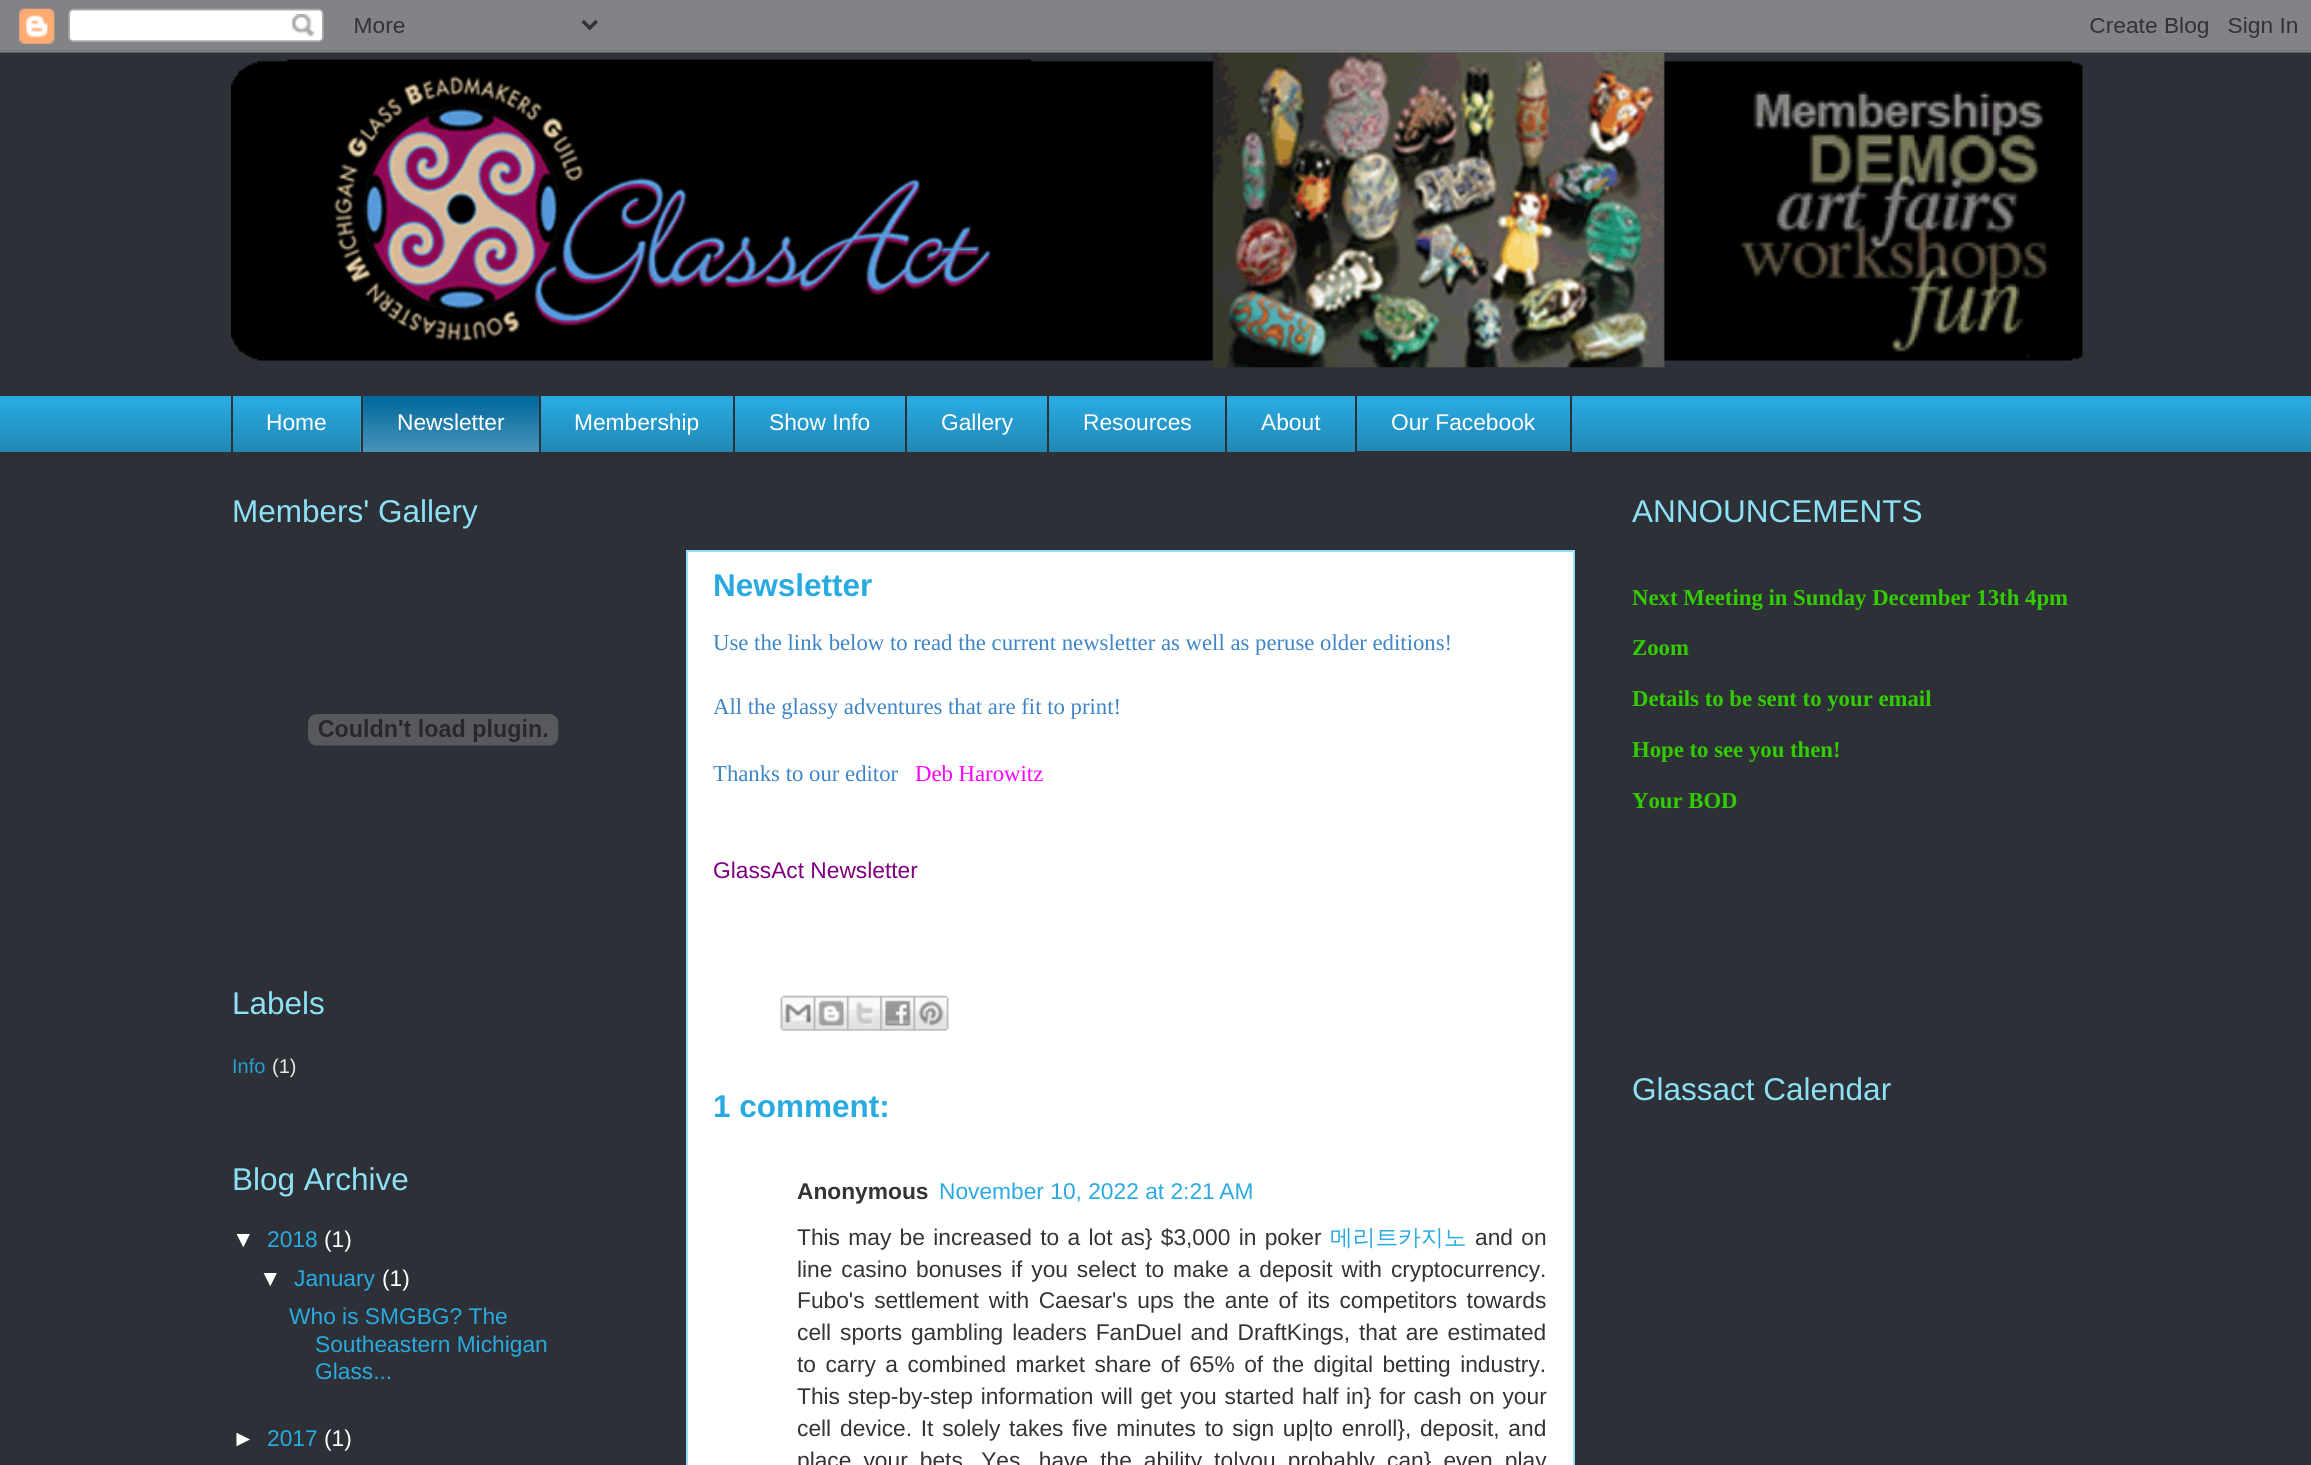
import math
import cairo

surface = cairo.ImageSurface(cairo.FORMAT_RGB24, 2311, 1465)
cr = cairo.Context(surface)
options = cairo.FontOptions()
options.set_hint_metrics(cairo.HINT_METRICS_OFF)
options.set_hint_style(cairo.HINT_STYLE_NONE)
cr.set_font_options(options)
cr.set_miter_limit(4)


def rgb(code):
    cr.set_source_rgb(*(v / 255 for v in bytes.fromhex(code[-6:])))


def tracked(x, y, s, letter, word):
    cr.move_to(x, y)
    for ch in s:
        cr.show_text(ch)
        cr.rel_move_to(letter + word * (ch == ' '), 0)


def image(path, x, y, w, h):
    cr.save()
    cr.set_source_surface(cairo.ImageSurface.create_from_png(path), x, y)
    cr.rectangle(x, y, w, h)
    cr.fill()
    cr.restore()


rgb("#2d3037")
cr.paint()
image("img/2.png", 231, 52, 1852, 316)
image("img/1.png", 0, 0, 2311, 53)
rgb("#29aae1")
cr.rectangle(0, 396, 2311, 56)
cr.fill()
image("img/3.png", 0, 404, 2311, 48)
rgb("#2d3037")
cr.rectangle(231, 394, 2, 59)
cr.fill()
rgb("#01689c")
cr.rectangle(363, 396, 176, 56)
cr.fill()
image("img/4.png", 360, 394, 179, 58)
for x, y, w, h, color in [
    (361, 394, 178, 2, "#2d3037"),
    (361, 394, 2, 59, "#2d3037"),
    (539, 394, 2, 59, "#2d3037"),
    (733, 394, 2, 59, "#2d3037"),
    (905, 394, 2, 59, "#2d3037"),
    (1047, 394, 2, 59, "#2d3037"),
    (1225, 394, 2, 59, "#2d3037"),
]:
    rgb(color)
    cr.rectangle(x, y, w, h)
    cr.fill()
cr.rectangle(1356, 395, 215, 57)
cr.stroke()
image("img/5.png", 308, 714, 251, 32)
rgb("#ffffff")
cr.rectangle(687, 551, 887, 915)
cr.fill_preserve()
rgb("#8ce1f5")
cr.stroke()
image("img/6.png", 780, 995, 36, 36)
image("img/7.png", 813, 995, 36, 36)
image("img/8.png", 847, 995, 35, 36)
image("img/9.png", 880, 995, 36, 36)
image("img/10.png", 913, 995, 36, 36)
cr.select_font_face("Liberation Sans")
cr.set_font_size(22.75)
rgb("#ffffff")
for x, y, s in [
    (266, 430, "Home"),
    (397, 430, "Newsletter"),
    (574, 430, "Membership"),
    (769, 430, "Show Info"),
    (941, 430, "Gallery"),
    (1083, 430, "Resources"),
    (1261, 430, "About"),
    (1391, 430, "Our Facebook"),
]:
    cr.move_to(x, y)
    cr.show_text(s)
cr.set_font_size(31.5)
rgb("#8ce1f5")
cr.move_to(232, 522)
cr.show_text("Members' Gallery")
cr.move_to(232, 1014)
cr.show_text("Labels")
cr.set_font_size(20)
rgb("#299ed0")
cr.move_to(232, 1073)
cr.show_text("Info")
rgb("#eaeaeb")
cr.move_to(272, 1073)
cr.show_text("(1)")
cr.set_font_size(31.5)
rgb("#8ce1f5")
cr.move_to(232, 1190)
cr.show_text("Blog Archive")
cr.set_font_size(22.75)
rgb("#ffffff")
cr.move_to(232, 1247)
cr.show_text("▼")
rgb("#29aae1")
cr.move_to(267, 1247)
cr.show_text("2018")
rgb("#ffffff")
cr.move_to(324, 1247)
cr.show_text("(1)")
cr.move_to(259, 1286)
cr.show_text("▼")
rgb("#29aae1")
cr.move_to(294, 1286)
cr.show_text("January")
rgb("#ffffff")
cr.move_to(382, 1286)
cr.show_text("(1)")
rgb("#29aae1")
for x, y, s in [
    (289, 1324, "Who is SMGBG? The"),
    (315, 1352, "Southeastern Michigan"),
    (315, 1379, "Glass..."),
]:
    cr.move_to(x, y)
    cr.show_text(s)
rgb("#ffffff")
cr.move_to(232, 1446)
cr.show_text("►")
rgb("#29aae1")
cr.move_to(267, 1446)
cr.show_text("2017")
rgb("#ffffff")
cr.move_to(324, 1446)
cr.show_text("(1)")
cr.select_font_face("Liberation Sans", cairo.FONT_SLANT_NORMAL, cairo.FONT_WEIGHT_BOLD)
cr.set_font_size(31.5)
rgb("#29aae1")
cr.move_to(713, 596)
cr.show_text("Newsletter")
cr.select_font_face("Liberation Serif")
cr.set_font_size(22.75)
rgb("#3d85c6")
for x, y, s in [
    (713, 650, "Use the link below to read the current newsletter as well as peruse older editions!"),
    (713, 714, "All the glassy adventures that are fit to print!"),
    (713, 781, "Thanks to our editor"),
]:
    cr.move_to(x, y)
    cr.show_text(s)
rgb("#ff00ff")
cr.move_to(915, 781)
cr.show_text("Deb Harowitz")
cr.select_font_face("Liberation Sans")
rgb("#800080")
cr.move_to(713, 878)
cr.show_text("GlassAct Newsletter")
cr.select_font_face("Liberation Sans", cairo.FONT_SLANT_NORMAL, cairo.FONT_WEIGHT_BOLD)
cr.set_font_size(31.5)
rgb("#29aae1")
cr.move_to(713, 1117)
cr.show_text("1 comment:")
cr.set_font_size(22.75)
rgb("#333333")
cr.move_to(797, 1199)
cr.show_text("Anonymous")
cr.select_font_face("Liberation Sans")
rgb("#29aae1")
cr.move_to(939, 1199)
cr.show_text("November 10, 2022 at 2:21 AM")
rgb("#333333")
tracked(797, 1245, "This may be increased to a lot as} $3,000 in poker", 0, 2)
cr.select_font_face("WenQuanYi Zen Hei Medium")
rgb("#29aae1")
cr.move_to(1330, 1245)
cr.show_text("메리트카지노")
cr.select_font_face("Liberation Sans")
rgb("#333333")
tracked(1475, 1245, "and on", 0, 2)
tracked(797, 1277, "line casino bonuses if you select to make a deposit with cryptocurrency.", 0, 2.6)
tracked(797, 1308, "Fubo's settlement with Caesar's ups the ante of its competitors towards", 0, 3.25)
tracked(797, 1340, "cell sports gambling leaders FanDuel and DraftKings, that are estimated", 0, 2.6)
tracked(797, 1372, "to carry a combined market share of 65% of the digital betting industry.", 0, 3.1)
tracked(797, 1404, "This step-by-step information will get you started half", 0, 1.5)
tracked(1346, 1404, "in} for cash on your", 0, 1.5)
cr.move_to(797, 1436)
cr.show_text("cell")
tracked(840, 1436, "device. It solely takes five minutes to sign up|to enroll}, deposit, and", 0, 2.4)
tracked(797, 1468, "place your bets. Yes, have the ability to|you probably can} even play", 0, 5.75)
cr.set_font_size(31.5)
rgb("#8ce1f5")
cr.move_to(1632, 522)
cr.show_text("ANNOUNCEMENTS")
cr.select_font_face("Liberation Serif", cairo.FONT_SLANT_NORMAL, cairo.FONT_WEIGHT_BOLD)
cr.set_font_size(22.75)
rgb("#33cc00")
for x, y, s in [
    (1632, 605, "Next Meeting in Sunday December 13th 4pm"),
    (1632, 655, "Zoom"),
    (1632, 706, "Details to be sent to your email"),
    (1632, 757, "Hope to see you then!"),
    (1632, 808, "Your BOD"),
]:
    cr.move_to(x, y)
    cr.show_text(s)
cr.select_font_face("Liberation Sans")
cr.set_font_size(31.5)
rgb("#8ce1f5")
cr.move_to(1632, 1100)
cr.show_text("Glassact Calendar")
surface.write_to_png("page.png")
